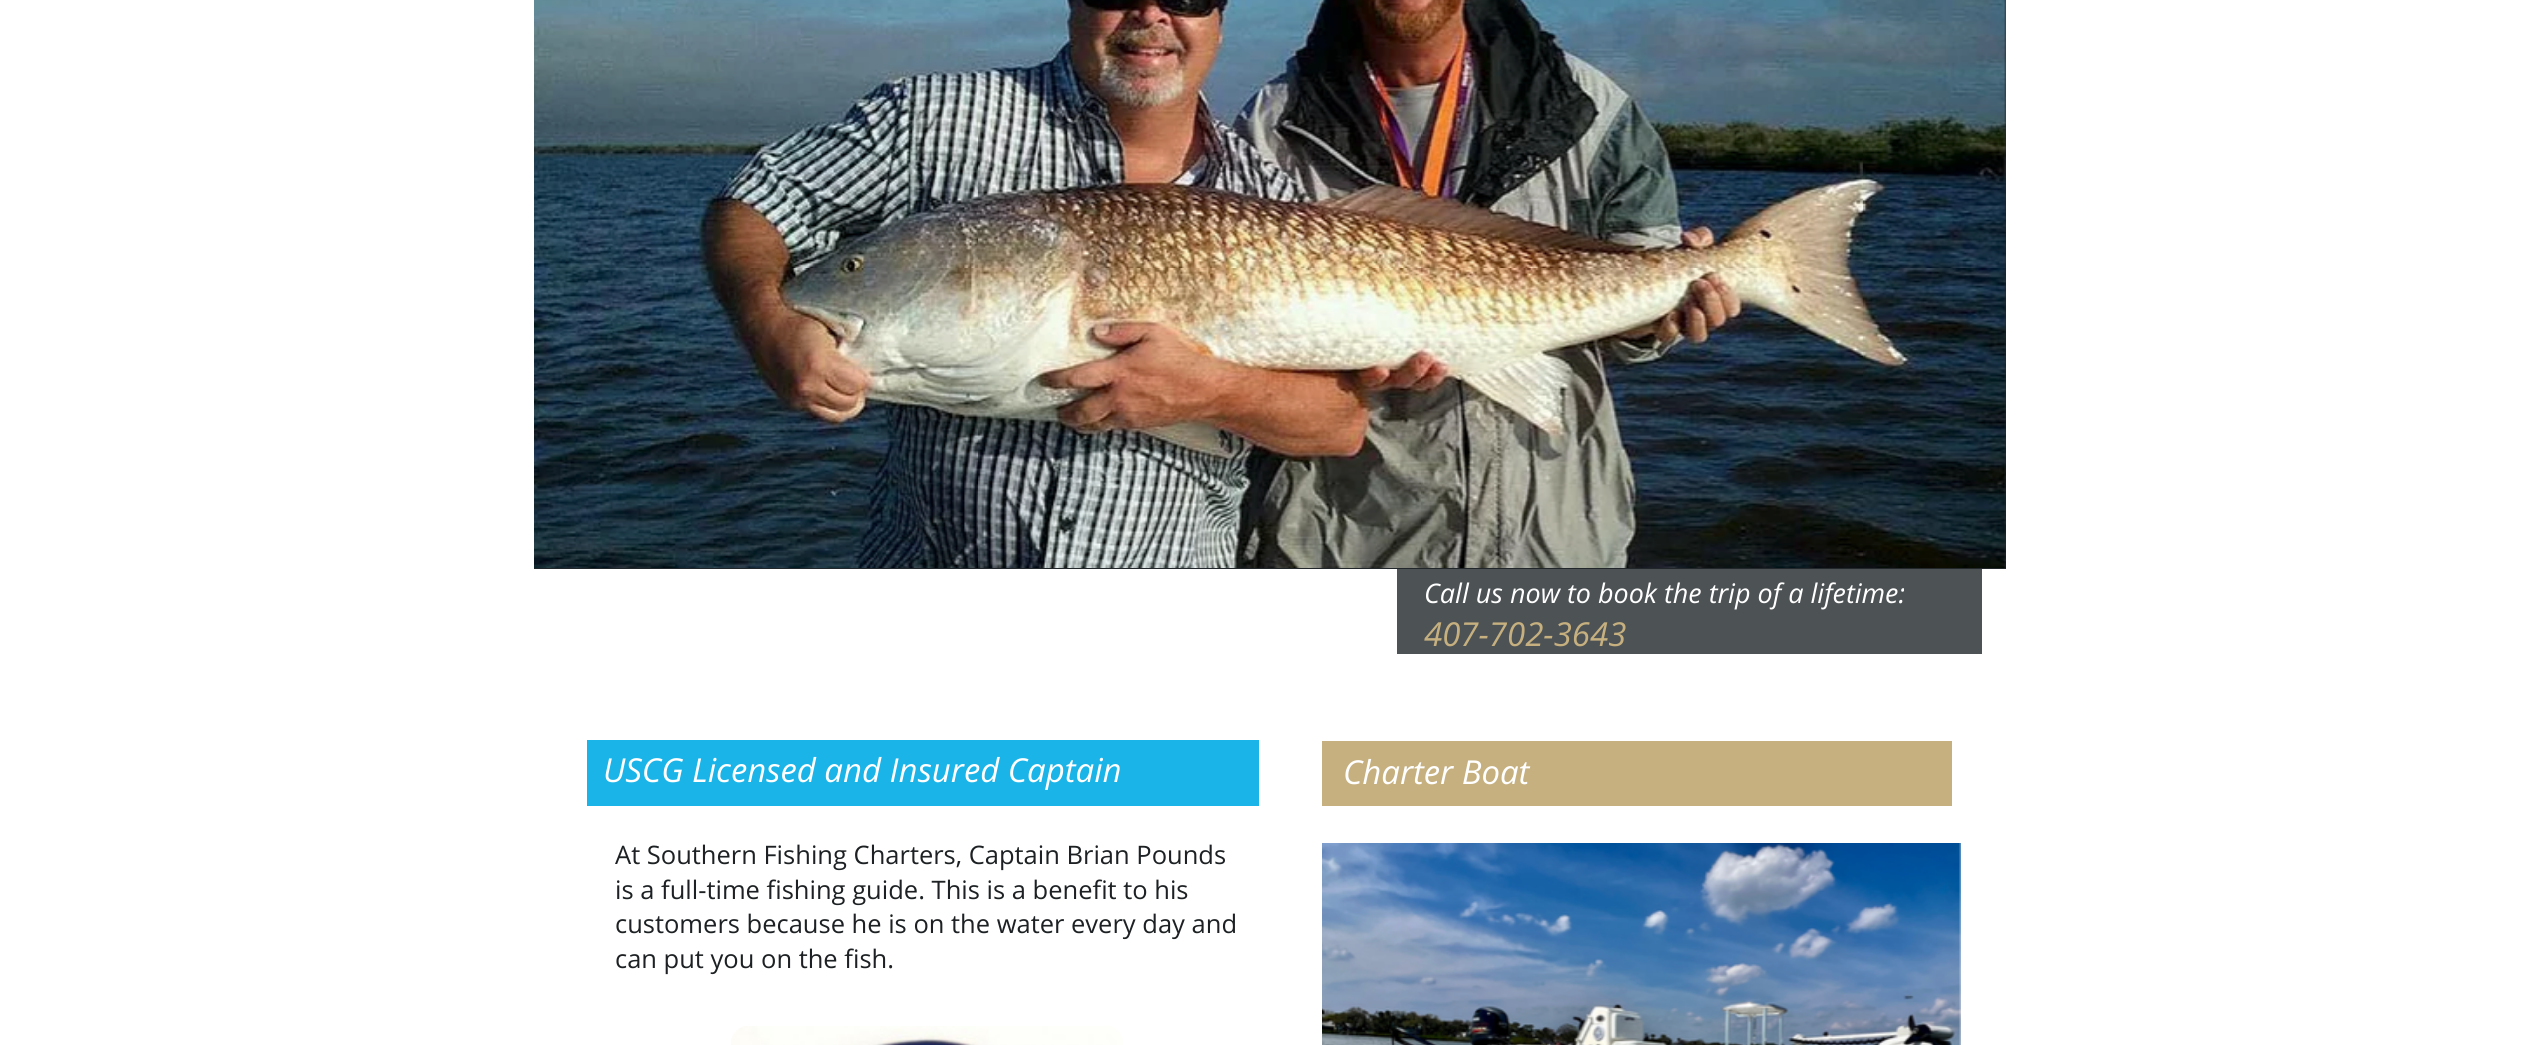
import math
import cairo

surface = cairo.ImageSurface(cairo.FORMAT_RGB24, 2538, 1045)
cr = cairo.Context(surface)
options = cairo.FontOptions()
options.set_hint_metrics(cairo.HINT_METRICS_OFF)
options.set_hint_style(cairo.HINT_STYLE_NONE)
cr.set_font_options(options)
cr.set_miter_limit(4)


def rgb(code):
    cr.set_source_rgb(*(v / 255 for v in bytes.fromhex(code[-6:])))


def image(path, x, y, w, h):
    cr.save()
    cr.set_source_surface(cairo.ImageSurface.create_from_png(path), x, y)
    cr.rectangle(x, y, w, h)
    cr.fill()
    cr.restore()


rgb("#ffffff")
cr.paint()
rgb("#21272b")
cr.rectangle(534, 0, 1472, 569)
cr.fill()
image("img/1.png", 534, 0, 1472, 568)
for x, y, w, h, color in [
    (1397, 569, 585, 85, "#4d5255"),
    (587, 740, 672, 66, "#1bb4e8"),
    (1322, 741, 630, 65, "#c6b07f"),
]:
    rgb(color)
    cr.rectangle(x, y, w, h)
    cr.fill()
image("img/2.png", 1322, 843, 639, 202)
image("img/3.png", 731, 1026, 392, 19)
cr.select_font_face("Open Sans", cairo.FONT_SLANT_ITALIC)
cr.set_font_size(27)
rgb("#ffffff")
cr.move_to(1424, 603)
cr.show_text("Call us now to book the trip of a lifetime:")
cr.set_font_size(33)
rgb("#c6b07f")
cr.move_to(1424, 646)
cr.show_text("407-702-3643")
rgb("#ffffff")
cr.move_to(603, 782)
cr.show_text("USCG Licensed and Insured Captain")
cr.move_to(1343, 784)
cr.show_text("Charter Boat")
cr.select_font_face("Open Sans")
cr.set_font_size(25.5)
rgb("#1d2123")
for x, y, s in [
    (615, 864, "At Southern Fishing Charters, Captain Brian Pounds"),
    (615, 899, "is a full-time fishing guide. This is a benefit to his"),
    (615, 933, "customers because he is on the water every day and"),
    (615, 968, "can put you on the fish."),
]:
    cr.move_to(x, y)
    cr.show_text(s)
surface.write_to_png("page.png")
